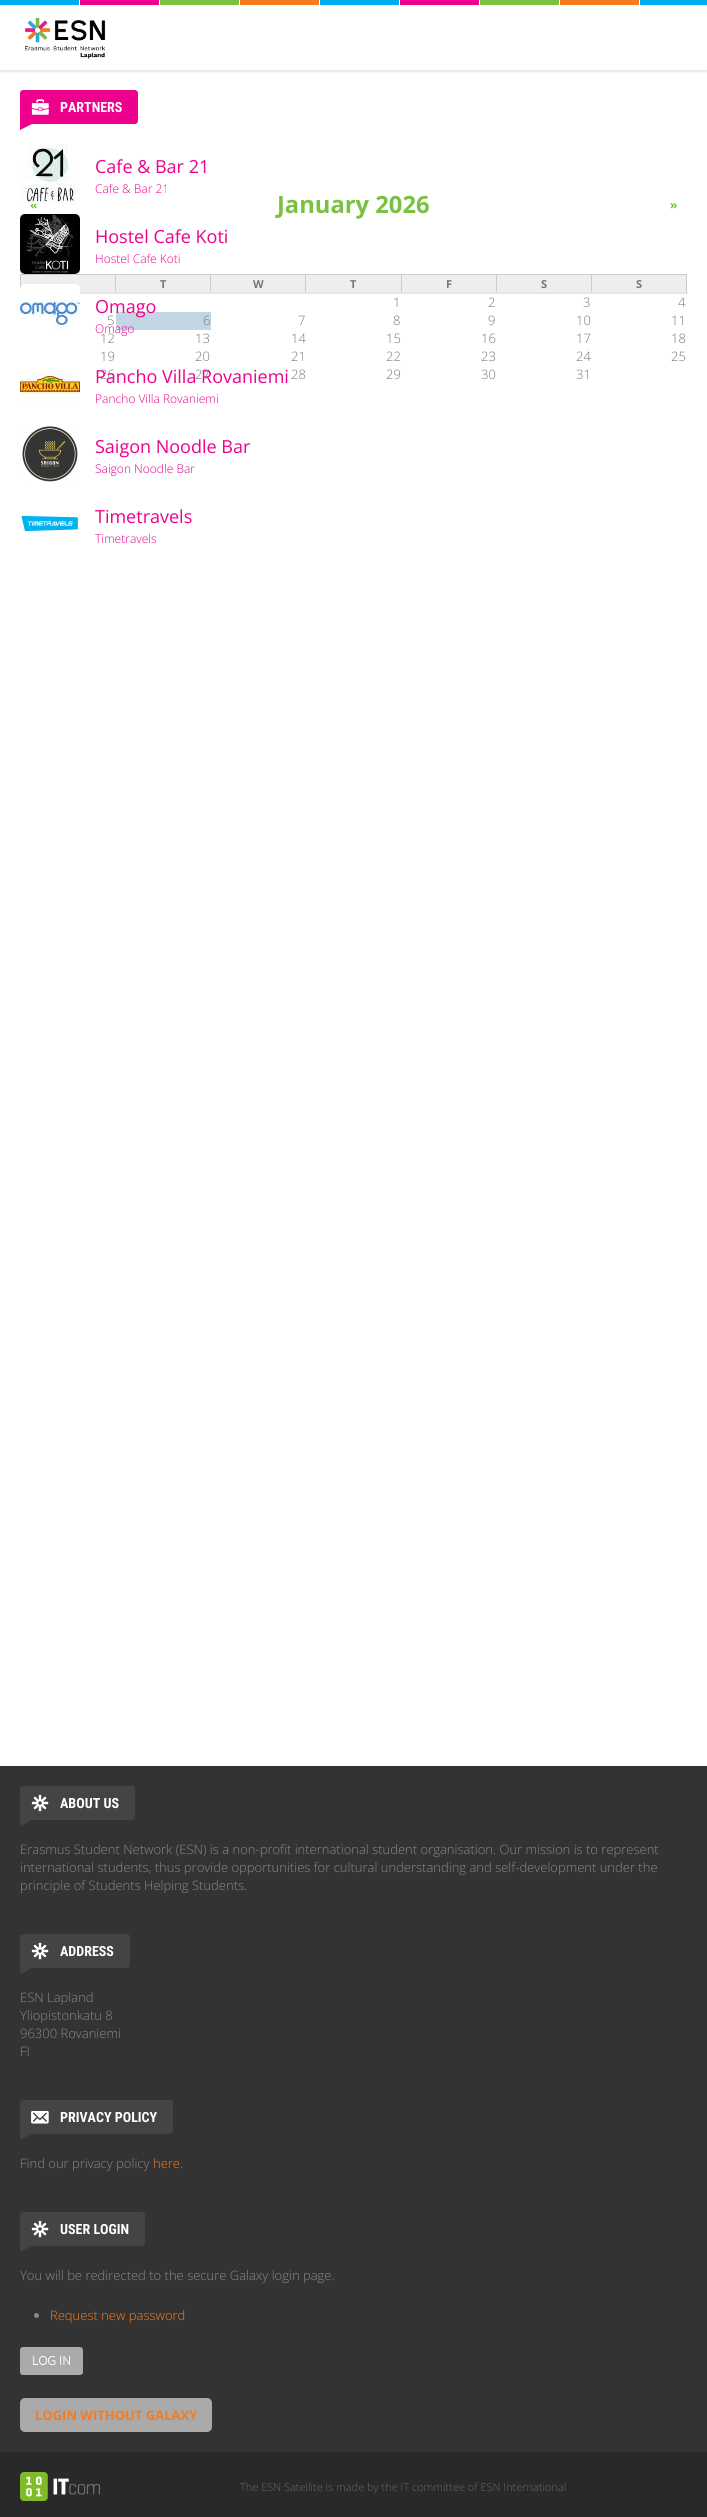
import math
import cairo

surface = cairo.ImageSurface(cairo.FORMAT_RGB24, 707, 2517)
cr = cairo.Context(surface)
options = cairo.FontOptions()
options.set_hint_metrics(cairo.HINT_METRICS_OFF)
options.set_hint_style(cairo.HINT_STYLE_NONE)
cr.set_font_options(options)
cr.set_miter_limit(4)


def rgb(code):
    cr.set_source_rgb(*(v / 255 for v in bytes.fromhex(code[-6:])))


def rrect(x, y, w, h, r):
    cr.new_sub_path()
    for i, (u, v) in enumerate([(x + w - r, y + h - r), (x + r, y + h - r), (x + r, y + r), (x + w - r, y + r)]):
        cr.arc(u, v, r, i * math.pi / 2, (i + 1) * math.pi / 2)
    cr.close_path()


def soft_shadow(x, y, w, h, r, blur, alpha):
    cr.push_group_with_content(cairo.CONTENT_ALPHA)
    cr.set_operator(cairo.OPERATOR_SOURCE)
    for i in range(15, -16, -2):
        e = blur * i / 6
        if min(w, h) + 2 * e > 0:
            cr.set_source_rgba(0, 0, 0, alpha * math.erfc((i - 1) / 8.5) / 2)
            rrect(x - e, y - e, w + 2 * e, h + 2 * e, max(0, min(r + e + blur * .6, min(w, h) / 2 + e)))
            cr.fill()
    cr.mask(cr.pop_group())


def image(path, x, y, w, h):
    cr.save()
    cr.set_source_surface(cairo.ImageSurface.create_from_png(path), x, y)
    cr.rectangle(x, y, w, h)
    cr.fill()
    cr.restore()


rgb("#ffffff")
cr.paint()
cr.save()
cr.rectangle(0, 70, 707, 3)
cr.clip()
rgb("#000000")
soft_shadow(0, 2, 707, 70, 0, 1, 0.1)
cr.restore()
image("img/1.png", 0, 0, 707, 5)
image("img/2.png", 25, 17, 81, 42)
rgb("#ed008c")
cr.new_path()
cr.move_to(23, 90)
cr.line_to(135, 90)
cr.curve_to(136.5, 90, 138, 91.5, 138, 93)
cr.line_to(138, 121)
cr.curve_to(138, 122.5, 136.5, 124, 135, 124)
cr.line_to(20, 124)
cr.line_to(20, 93)
cr.curve_to(20, 91.5, 21.5, 90, 23, 90)
cr.close_path()
cr.fill()
image("img/3.png", 31, 99, 18, 16)
cr.new_path()
cr.move_to(20, 124)
cr.line_to(32, 124)
cr.line_to(20, 130)
cr.close_path()
cr.fill()
image("img/5.png", 20, 214, 60, 60)
for x, y, w, h, color in [
    (21, 275, 94, 17, "#eeeeee"),
    (591, 274, 96, 1, "#cccccc"),
    (591, 274, 1, 20, "#cccccc"),
    (496, 274, 96, 1, "#cccccc"),
    (496, 274, 1, 20, "#cccccc"),
    (401, 274, 96, 1, "#cccccc"),
    (401, 274, 1, 20, "#cccccc"),
    (305, 274, 97, 1, "#cccccc"),
    (305, 274, 1, 20, "#cccccc"),
    (210, 274, 96, 1, "#cccccc"),
    (210, 274, 1, 20, "#cccccc"),
    (115, 274, 96, 1, "#cccccc"),
    (115, 274, 1, 20, "#cccccc"),
    (20, 274, 96, 1, "#cccccc"),
    (20, 274, 1, 20, "#cccccc"),
]:
    rgb(color)
    cr.rectangle(x, y, w, h)
    cr.fill()
image("img/6.png", 20, 284, 60, 48)
image("img/7.png", 20, 369, 60, 33)
image("img/8.png", 22, 426, 56, 56)
image("img/9.png", 21, 515, 57, 17)
for x, y, w, h, color in [
    (686, 274, 1, 20, "#cccccc"),
    (80, 292, 608, 2, "#e5e5e5"),
    (116, 275, 94, 17, "#eeeeee"),
    (211, 275, 94, 17, "#eeeeee"),
    (306, 275, 95, 17, "#eeeeee"),
    (402, 275, 94, 17, "#eeeeee"),
    (497, 275, 94, 17, "#eeeeee"),
    (592, 275, 94, 17, "#eeeeee"),
    (116, 312, 95, 18, "#c3d6e4"),
    (0, 1766, 707, 686, "#333333"),
]:
    rgb(color)
    cr.rectangle(x, y, w, h)
    cr.fill()
rgb("#444444")
cr.new_path()
cr.move_to(23, 1786)
cr.line_to(132, 1786)
cr.curve_to(133.5, 1786, 135, 1787.5, 135, 1789)
cr.line_to(135, 1817)
cr.curve_to(135, 1818.5, 133.5, 1820, 132, 1820)
cr.line_to(20, 1820)
cr.line_to(20, 1789)
cr.curve_to(20, 1787.5, 21.5, 1786, 23, 1786)
cr.close_path()
cr.fill()
image("img/10.png", 31, 1794, 18, 18)
cr.new_path()
cr.move_to(20, 1820)
cr.line_to(32, 1820)
cr.line_to(20, 1826)
cr.close_path()
cr.fill()
cr.new_path()
cr.move_to(23, 1934)
cr.line_to(127, 1934)
cr.curve_to(128.5, 1934, 130, 1935.5, 130, 1937)
cr.line_to(130, 1965)
cr.curve_to(130, 1966.5, 128.5, 1968, 127, 1968)
cr.line_to(20, 1968)
cr.line_to(20, 1937)
cr.curve_to(20, 1935.5, 21.5, 1934, 23, 1934)
cr.close_path()
cr.fill()
image("img/10.png", 31, 1942, 18, 18)
cr.new_path()
cr.move_to(20, 1968)
cr.line_to(32, 1968)
cr.line_to(20, 1974)
cr.close_path()
cr.fill()
cr.new_path()
cr.move_to(23, 2100)
cr.line_to(170, 2100)
cr.curve_to(171.5, 2100, 173, 2101.5, 173, 2103)
cr.line_to(173, 2131)
cr.curve_to(173, 2132.5, 171.5, 2134, 170, 2134)
cr.line_to(20, 2134)
cr.line_to(20, 2103)
cr.curve_to(20, 2101.5, 21.5, 2100, 23, 2100)
cr.close_path()
cr.fill()
image("img/11.png", 31, 2111, 18, 13)
cr.new_path()
cr.move_to(20, 2134)
cr.line_to(32, 2134)
cr.line_to(20, 2140)
cr.close_path()
cr.fill()
cr.new_path()
cr.move_to(23, 2212)
cr.line_to(142, 2212)
cr.curve_to(143.5, 2212, 145, 2213.5, 145, 2215)
cr.line_to(145, 2243)
cr.curve_to(145, 2244.5, 143.5, 2246, 142, 2246)
cr.line_to(20, 2246)
cr.line_to(20, 2215)
cr.curve_to(20, 2213.5, 21.5, 2212, 23, 2212)
cr.close_path()
cr.fill()
image("img/10.png", 31, 2220, 18, 18)
cr.new_path()
cr.move_to(20, 2246)
cr.line_to(32, 2246)
cr.line_to(20, 2252)
cr.close_path()
cr.fill()
rgb("#888888")
cr.arc(36.5, 2315.5, 2.5, 0, 2 * math.pi)
cr.fill()
rgb("#aaaaaa")
rrect(20, 2347, 63, 28, 3)
cr.fill()
rrect(20, 2398, 192, 34, 5)
cr.fill()
rgb("#292929")
cr.rectangle(0, 2452, 707, 65)
cr.fill()
image("img/12.png", 20, 2472, 80, 29)
cr.select_font_face("Roboto Condensed", cairo.FONT_SLANT_NORMAL, cairo.FONT_WEIGHT_BOLD)
cr.set_font_size(14)
rgb("#ffffff")
cr.move_to(60, 112)
cr.show_text("PARTNERS")
cr.select_font_face("Open Sans")
cr.set_font_size(18)
rgb("#ed008c")
cr.move_to(95, 173)
cr.show_text("Cafe & Bar 21")
cr.select_font_face("Open Sans Light")
cr.set_font_size(12)
cr.move_to(95, 193)
cr.show_text("Cafe & Bar 21")
cr.select_font_face("Open Sans")
cr.set_font_size(18)
cr.move_to(95, 243)
cr.show_text("Hostel Cafe Koti")
cr.select_font_face("Open Sans Light")
cr.set_font_size(12)
cr.move_to(95, 263)
cr.show_text("Hostel Cafe Koti")
cr.select_font_face("Open Sans")
cr.set_font_size(18)
cr.move_to(95, 313)
cr.show_text("Omago")
cr.select_font_face("Open Sans Light")
cr.set_font_size(12)
cr.move_to(95, 333)
cr.show_text("Omago")
cr.move_to(95, 403)
cr.show_text("Pancho Villa Rovaniemi")
cr.select_font_face("Open Sans")
cr.set_font_size(18)
cr.move_to(95, 453)
cr.show_text("Saigon Noodle Bar")
cr.select_font_face("Open Sans Light")
cr.set_font_size(12)
cr.move_to(95, 473)
cr.show_text("Saigon Noodle Bar")
cr.select_font_face("Open Sans")
cr.set_font_size(18)
cr.move_to(95, 523)
cr.show_text("Timetravels")
cr.select_font_face("Open Sans Light")
cr.set_font_size(12)
cr.move_to(95, 543)
cr.show_text("Timetravels")
cr.select_font_face("Open Sans", cairo.FONT_SLANT_NORMAL, cairo.FONT_WEIGHT_BOLD)
cr.set_font_size(23.75)
rgb("#7ac143")
cr.move_to(277, 213)
cr.show_text("January 2026")
cr.set_font_size(12)
cr.move_to(30, 209)
cr.show_text("«")
image("img/4.png", 20, 144, 56, 60)
cr.move_to(670, 209)
cr.show_text("»")
cr.set_font_size(11)
rgb("#777777")
for x, y, s in [
    (160, 288, "T"),
    (253, 288, "W"),
    (350, 288, "T"),
    (446, 288, "F"),
    (541, 288, "S"),
    (636, 288, "S"),
]:
    cr.move_to(x, y)
    cr.show_text(s)
cr.select_font_face("Open Sans Light")
cr.set_font_size(13)
for x, y, s in [
    (393, 307, "1"),
    (488, 307, "2"),
    (583, 307, "3"),
    (678, 307, "4"),
    (107, 325, "5"),
    (203, 325, "6"),
    (298, 325, "7"),
    (393, 325, "8"),
    (488, 325, "9"),
    (576, 325, "10"),
    (671, 325, "11"),
    (100, 343, "12"),
    (195, 343, "13"),
    (291, 343, "14"),
    (386, 343, "15"),
    (481, 343, "16"),
    (576, 343, "17"),
    (671, 343, "18"),
    (100, 361, "19"),
    (195, 361, "20"),
    (291, 361, "21"),
    (386, 361, "22"),
    (481, 361, "23"),
    (576, 361, "24"),
    (671, 361, "25"),
    (100, 379, "26"),
    (195, 379, "27"),
]:
    cr.move_to(x, y)
    cr.show_text(s)
cr.select_font_face("Open Sans")
cr.set_font_size(18)
rgb("#ed008c")
cr.move_to(95, 383)
cr.show_text("Pancho Villa Rovaniemi")
cr.select_font_face("Open Sans Light")
cr.set_font_size(13)
rgb("#777777")
for x, y, s in [
    (291, 379, "28"),
    (386, 379, "29"),
    (481, 379, "30"),
    (576, 379, "31"),
]:
    cr.move_to(x, y)
    cr.show_text(s)
cr.select_font_face("Roboto Condensed", cairo.FONT_SLANT_NORMAL, cairo.FONT_WEIGHT_BOLD)
cr.set_font_size(14)
rgb("#ffffff")
cr.move_to(60, 1808)
cr.show_text("ABOUT US")
cr.select_font_face("Open Sans Light")
cr.set_font_size(13)
rgb("#888888")
for x, y, s in [
    (20, 1854, "Erasmus Student Network (ESN) is a non-profit international student organisation. Our mission is to represent"),
    (20, 1872, "international students, thus provide opportunities for cultural understanding and self-development under the"),
    (20, 1890, "principle of Students Helping Students."),
]:
    cr.move_to(x, y)
    cr.show_text(s)
cr.select_font_face("Roboto Condensed", cairo.FONT_SLANT_NORMAL, cairo.FONT_WEIGHT_BOLD)
cr.set_font_size(14)
rgb("#ffffff")
cr.move_to(60, 1956)
cr.show_text("ADDRESS")
cr.select_font_face("Open Sans Light")
cr.set_font_size(13)
rgb("#888888")
for x, y, s in [
    (20, 2002, "ESN Lapland"),
    (20, 2020, "Yliopistonkatu 8"),
    (20, 2038, "96300 Rovaniemi"),
    (20, 2056, "FI"),
]:
    cr.move_to(x, y)
    cr.show_text(s)
cr.select_font_face("Roboto Condensed", cairo.FONT_SLANT_NORMAL, cairo.FONT_WEIGHT_BOLD)
cr.set_font_size(14)
rgb("#ffffff")
cr.move_to(60, 2122)
cr.show_text("PRIVACY POLICY")
cr.select_font_face("Open Sans Light")
cr.set_font_size(13)
rgb("#888888")
cr.move_to(20, 2168)
cr.show_text("Find our privacy policy")
rgb("#f57b20")
cr.move_to(153, 2168)
cr.show_text("here")
rgb("#888888")
cr.move_to(180, 2168)
cr.show_text(".")
cr.select_font_face("Roboto Condensed", cairo.FONT_SLANT_NORMAL, cairo.FONT_WEIGHT_BOLD)
cr.set_font_size(14)
rgb("#ffffff")
cr.move_to(60, 2234)
cr.show_text("USER LOGIN")
cr.select_font_face("Open Sans Light")
cr.set_font_size(13)
rgb("#888888")
cr.move_to(20, 2280)
cr.show_text("You will be redirected to the secure Galaxy login page.")
rgb("#f57b20")
cr.move_to(50, 2320)
cr.show_text("Request new password")
cr.select_font_face("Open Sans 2", cairo.FONT_SLANT_NORMAL, cairo.FONT_WEIGHT_BOLD)
cr.set_font_size(12)
rgb("#ffffff")
cr.move_to(32, 2365)
cr.show_text("LOG IN")
cr.select_font_face("Open Sans", cairo.FONT_SLANT_NORMAL, cairo.FONT_WEIGHT_BOLD)
cr.set_font_size(13)
rgb("#f57b20")
cr.move_to(35, 2420)
cr.show_text("LOGIN WITHOUT GALAXY")
cr.select_font_face("Open Sans 2 Light")
cr.set_font_size(11)
rgb("#666666")
cr.move_to(240, 2491)
cr.show_text("The ESN Satellite is made by the IT committee of ESN International")
surface.write_to_png("page.png")
